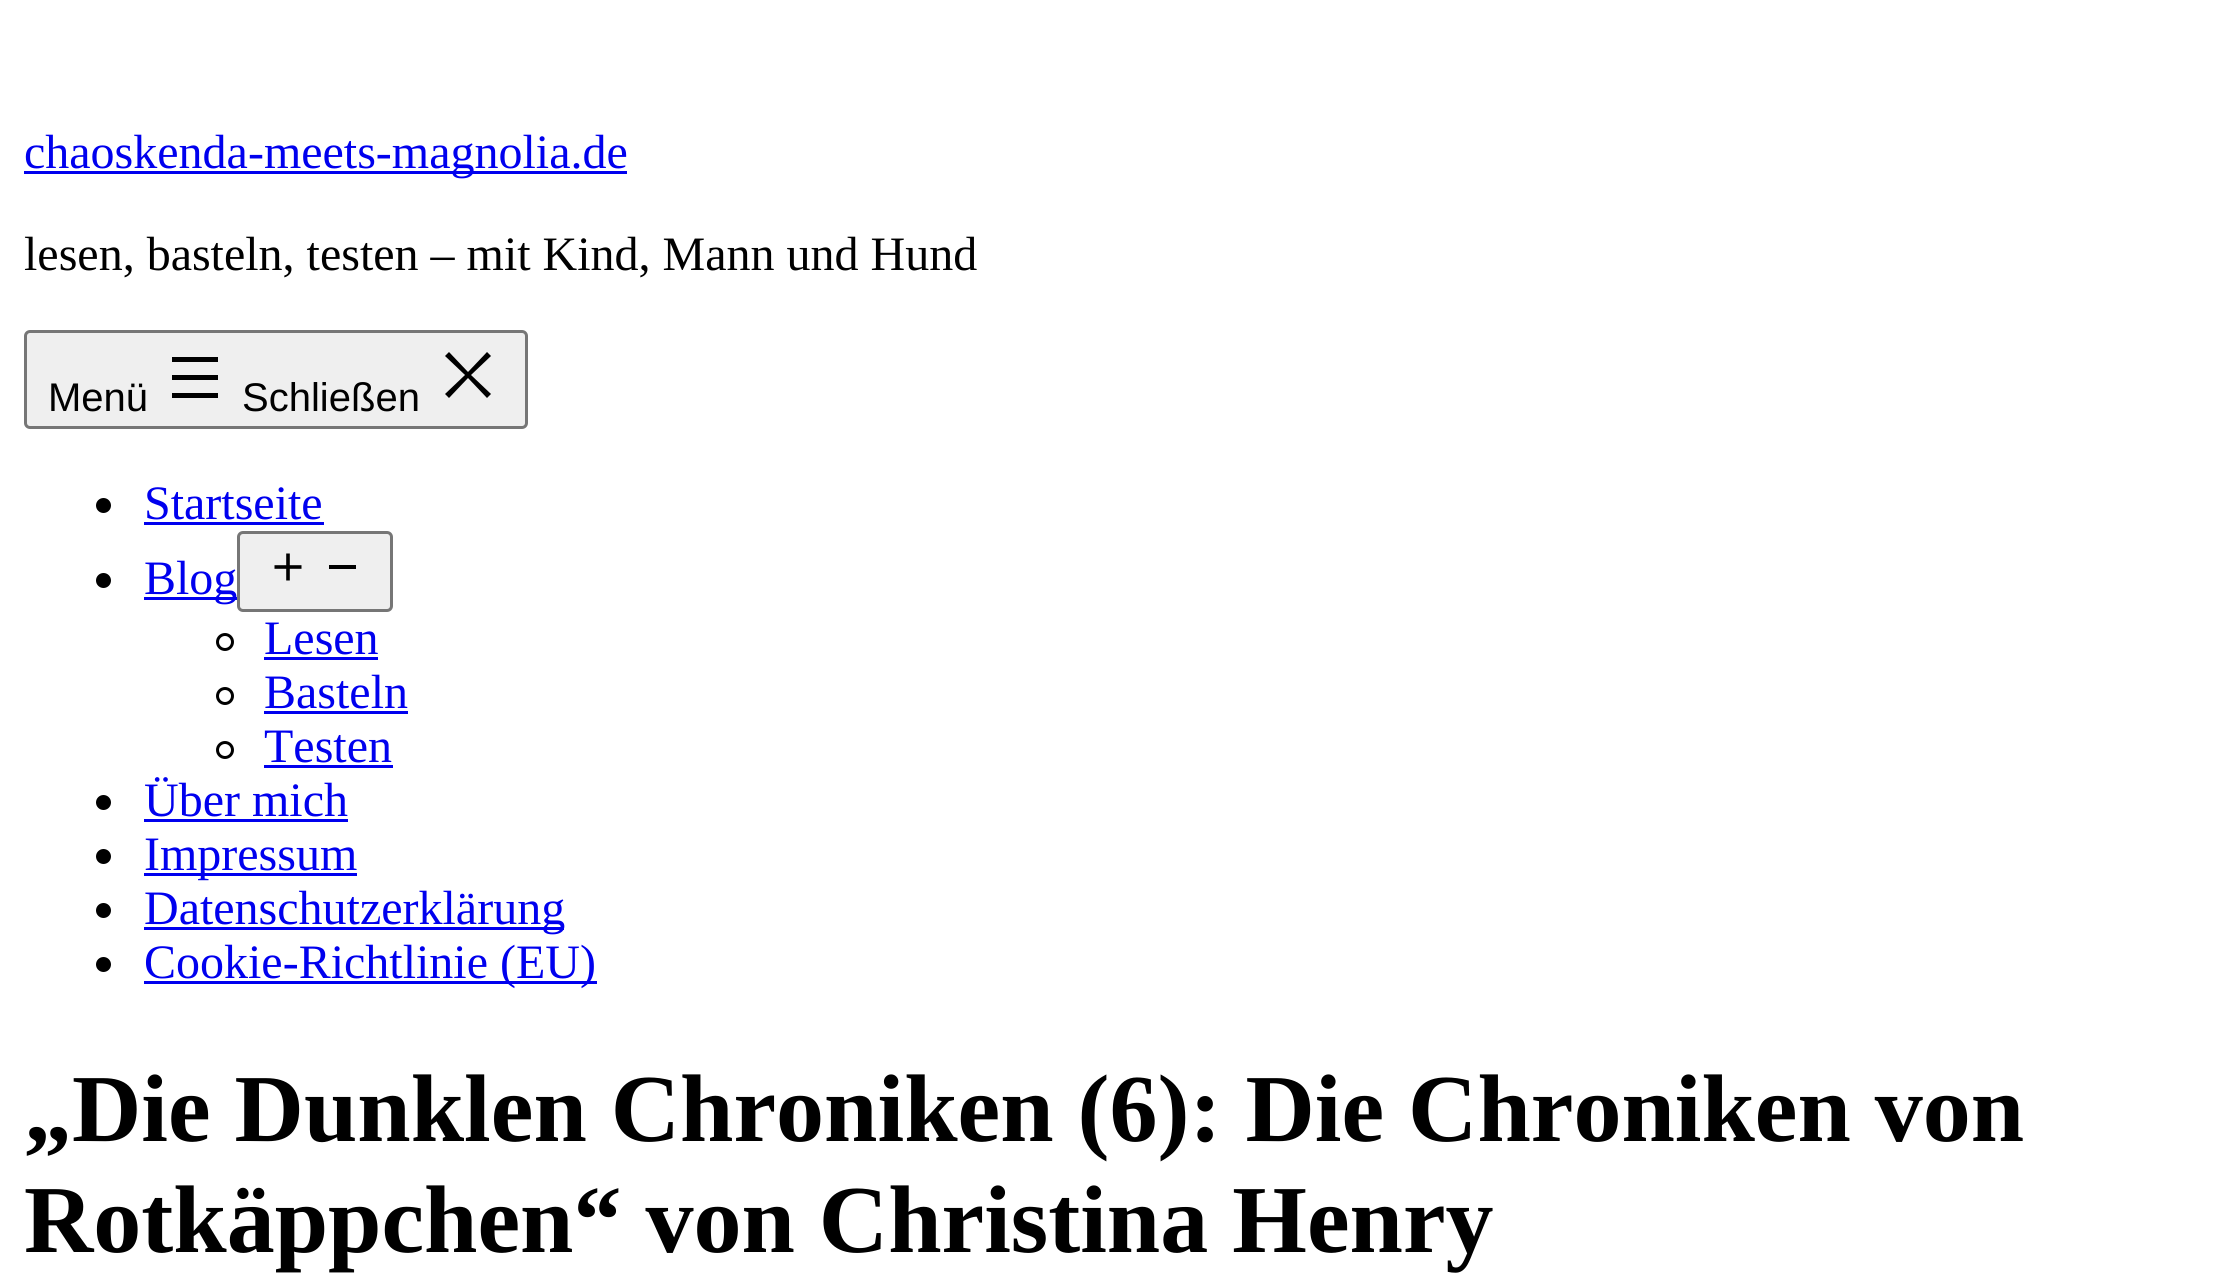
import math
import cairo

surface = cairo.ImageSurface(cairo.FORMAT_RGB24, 2221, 1274)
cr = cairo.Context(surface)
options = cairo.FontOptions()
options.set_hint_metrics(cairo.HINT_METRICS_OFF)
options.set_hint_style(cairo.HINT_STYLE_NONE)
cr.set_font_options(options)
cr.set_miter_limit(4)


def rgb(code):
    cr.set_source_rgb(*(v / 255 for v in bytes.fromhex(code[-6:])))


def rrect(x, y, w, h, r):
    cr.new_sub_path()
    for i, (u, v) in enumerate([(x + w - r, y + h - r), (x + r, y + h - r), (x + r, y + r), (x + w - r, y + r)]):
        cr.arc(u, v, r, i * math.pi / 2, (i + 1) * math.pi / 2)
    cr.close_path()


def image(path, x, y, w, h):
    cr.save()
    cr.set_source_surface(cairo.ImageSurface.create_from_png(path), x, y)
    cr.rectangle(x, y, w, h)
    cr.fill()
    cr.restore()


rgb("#ffffff")
cr.paint()
rgb("#0000ee")
cr.rectangle(24, 171, 603, 3)
cr.fill()
rgb("#efefef")
rrect(25.5, 331.5, 501, 96, 4.5)
cr.fill_preserve()
rgb("#767676")
cr.set_line_width(3)
cr.stroke()
rgb("#000000")
cr.set_fill_rule(cairo.FILL_RULE_EVEN_ODD)
cr.new_path()
cr.move_to(172, 357)
cr.line_to(218, 357)
cr.line_to(218, 362)
cr.line_to(172, 362)
cr.close_path()
cr.move_to(172, 375)
cr.line_to(218, 375)
cr.line_to(218, 380)
cr.line_to(172, 380)
cr.close_path()
cr.move_to(218, 393)
cr.line_to(172, 393)
cr.line_to(172, 398)
cr.line_to(218, 398)
cr.close_path()
cr.fill()
cr.new_path()
cr.move_to(468, 372)
cr.line_to(449, 352)
cr.line_to(445, 356)
cr.line_to(465, 375)
cr.line_to(445, 394)
cr.line_to(449, 398)
cr.line_to(468, 378)
cr.line_to(487, 398)
cr.line_to(491, 394)
cr.line_to(471, 375)
cr.line_to(491, 356)
cr.line_to(487, 352)
cr.close_path()
cr.fill()
cr.arc(103.5, 505.5, 7.5, 0, 2 * math.pi)
cr.fill()
rgb("#0000ee")
cr.rectangle(144, 522, 180, 3)
cr.fill()
rgb("#000000")
cr.arc(103.5, 580.5, 7.5, 0, 2 * math.pi)
cr.fill()
rgb("#0000ee")
cr.rectangle(144, 597, 93, 3)
cr.fill()
rgb("#efefef")
rrect(238.5, 532.5, 153, 78, 4.5)
cr.fill_preserve()
rgb("#767676")
cr.stroke()
image("img/1.png", 274, 553, 28, 28)
rgb("#000000")
cr.rectangle(329, 565, 27, 4)
cr.fill()
cr.arc(225, 642, 7.5, 0, 2 * math.pi)
cr.stroke()
rgb("#0000ee")
cr.rectangle(264, 657, 114, 3)
cr.fill()
cr.arc(225, 696, 7.5, 0, 2 * math.pi)
rgb("#000000")
cr.stroke()
rgb("#0000ee")
cr.rectangle(264, 711, 144, 3)
cr.fill()
cr.arc(225, 750, 7.5, 0, 2 * math.pi)
rgb("#000000")
cr.stroke()
rgb("#0000ee")
cr.rectangle(264, 765, 129, 3)
cr.fill()
rgb("#000000")
cr.arc(103.5, 802.5, 7.5, 0, 2 * math.pi)
cr.fill()
rgb("#0000ee")
cr.rectangle(144, 819, 204, 3)
cr.fill()
rgb("#000000")
cr.arc(103.5, 856.5, 7.5, 0, 2 * math.pi)
cr.fill()
rgb("#0000ee")
cr.rectangle(144, 873, 213, 3)
cr.fill()
rgb("#000000")
cr.arc(103.5, 910.5, 7.5, 0, 2 * math.pi)
cr.fill()
rgb("#0000ee")
cr.rectangle(144, 927, 420, 3)
cr.fill()
rgb("#000000")
cr.arc(103.5, 964.5, 7.5, 0, 2 * math.pi)
cr.fill()
rgb("#0000ee")
cr.rectangle(144, 981, 453, 3)
cr.fill()
cr.select_font_face("Liberation Serif")
cr.set_font_size(48)
cr.move_to(24, 168)
cr.show_text("chaoskenda-meets-magnolia.de")
rgb("#000000")
cr.move_to(24, 270)
cr.show_text("lesen, basteln, testen – mit Kind, Mann und Hund")
cr.select_font_face("Liberation Sans")
cr.set_font_size(40)
cr.move_to(48, 411)
cr.show_text("Menü")
cr.move_to(242, 411)
cr.show_text("Schließen")
cr.select_font_face("Liberation Serif")
cr.set_font_size(48)
rgb("#0000ee")
for x, y, s in [
    (144, 519, "Startseite"),
    (144, 594, "Blog"),
    (264, 654, "Lesen"),
    (264, 708, "Basteln"),
    (264, 762, "Testen"),
    (144, 816, "Über mich"),
    (144, 870, "Impressum"),
    (144, 924, "Datenschutzerklärung"),
    (144, 978, "Cookie-Richtlinie (EU)"),
]:
    cr.move_to(x, y)
    cr.show_text(s)
cr.select_font_face("Liberation Serif", cairo.FONT_SLANT_NORMAL, cairo.FONT_WEIGHT_BOLD)
cr.set_font_size(96)
rgb("#000000")
cr.move_to(24, 1141)
cr.show_text("„Die Dunklen Chroniken (6): Die Chroniken von")
cr.move_to(24, 1252)
cr.show_text("Rotkäppchen“ von Christina Henry")
surface.write_to_png("page.png")
